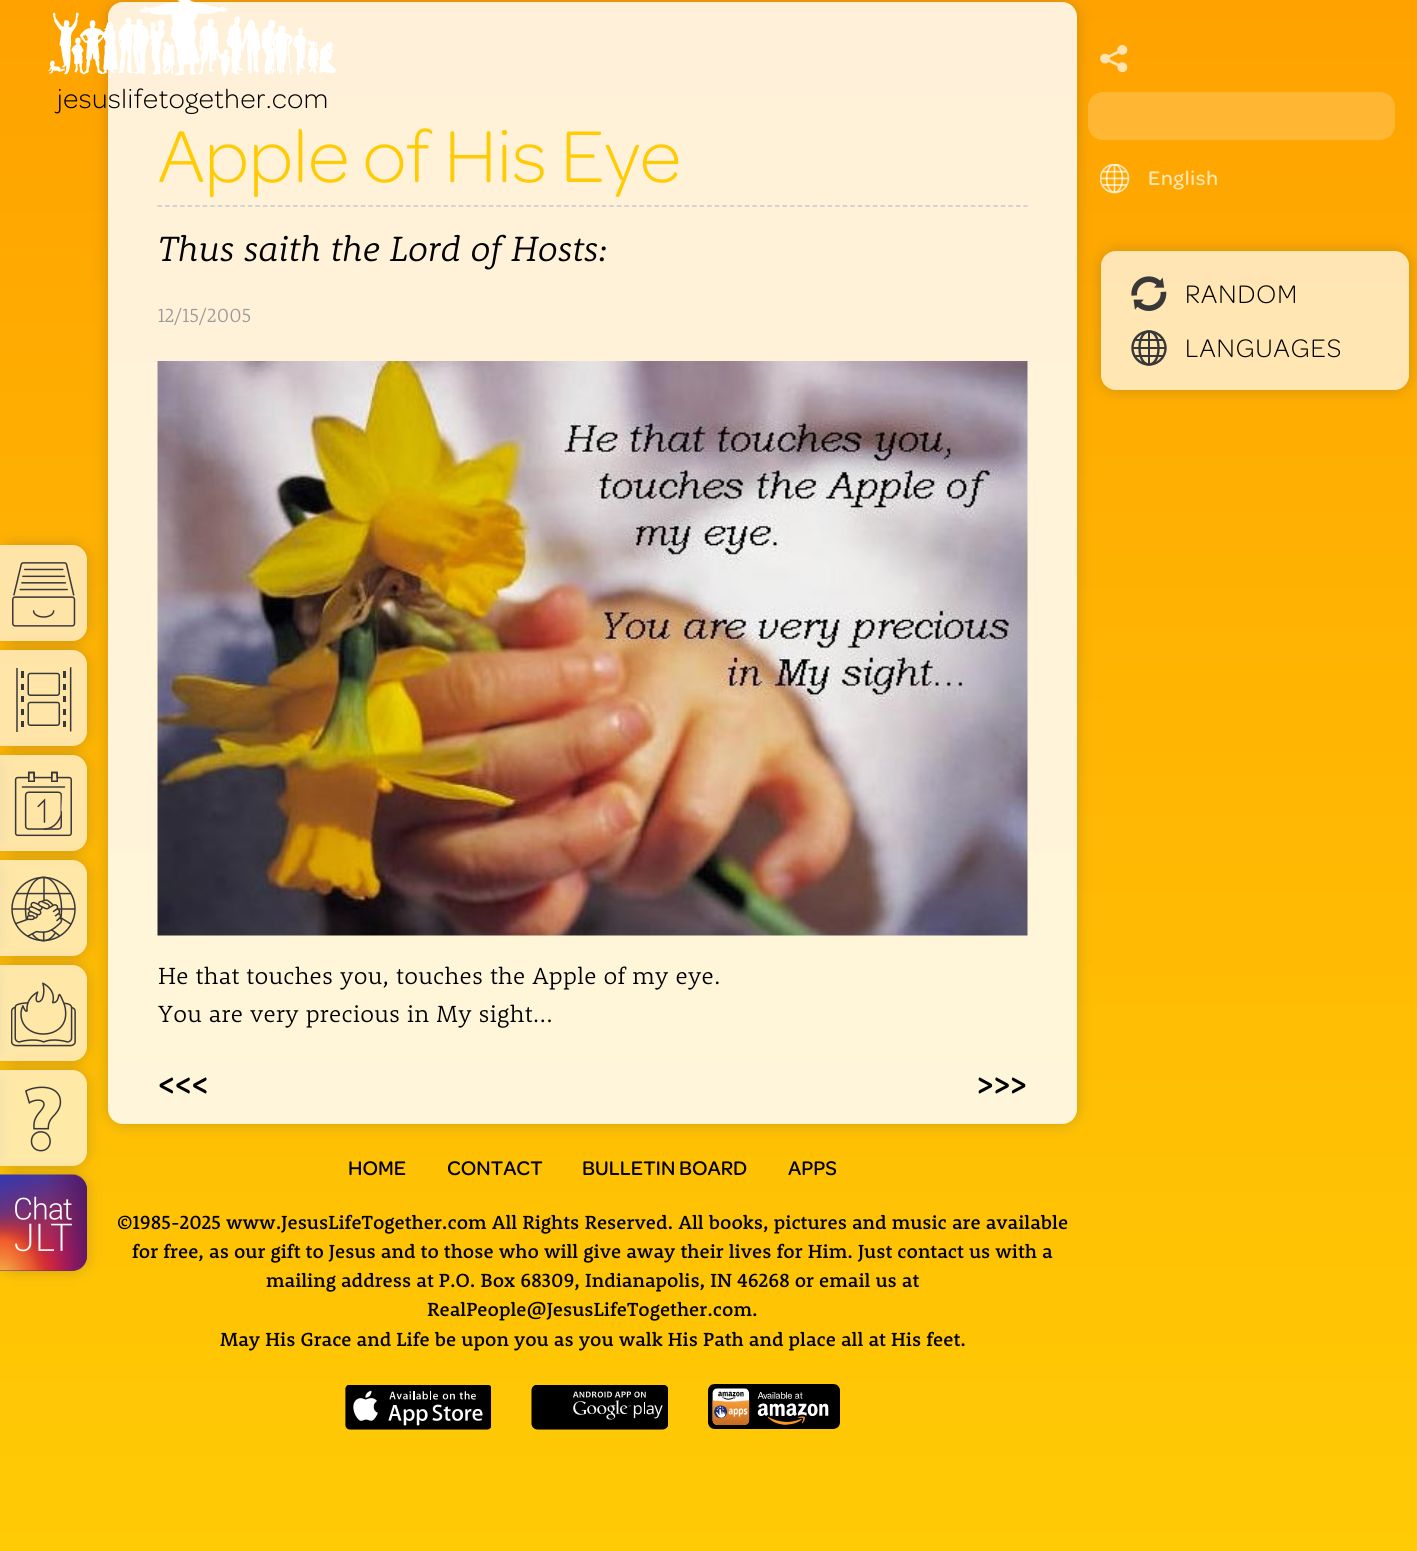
import math
import cairo

surface = cairo.ImageSurface(cairo.FORMAT_RGB24, 1417, 1551)
cr = cairo.Context(surface)
options = cairo.FontOptions()
options.set_hint_metrics(cairo.HINT_METRICS_OFF)
options.set_hint_style(cairo.HINT_STYLE_NONE)
cr.set_font_options(options)
cr.set_miter_limit(4)


def rgb(code):
    cr.set_source_rgb(*(v / 255 for v in bytes.fromhex(code[-6:])))


def tracked(x, y, s, letter, word):
    cr.move_to(x, y)
    for ch in s:
        cr.show_text(ch)
        cr.rel_move_to(letter + word * (ch == ' '), 0)


def rrect(x, y, w, h, r):
    cr.new_sub_path()
    for i, (u, v) in enumerate([(x + w - r, y + h - r), (x + r, y + h - r), (x + r, y + r), (x + w - r, y + r)]):
        cr.arc(u, v, r, i * math.pi / 2, (i + 1) * math.pi / 2)
    cr.close_path()


def soft_shadow(x, y, w, h, r, blur, alpha):
    cr.push_group_with_content(cairo.CONTENT_ALPHA)
    cr.set_operator(cairo.OPERATOR_SOURCE)
    for i in range(15, -16, -2):
        e = blur * i / 6
        if min(w, h) + 2 * e > 0:
            cr.set_source_rgba(0, 0, 0, alpha * math.erfc((i - 1) / 8.5) / 2)
            rrect(x - e, y - e, w + 2 * e, h + 2 * e, max(0, min(r + e + blur * .6, min(w, h) / 2 + e)))
            cr.fill()
    cr.mask(cr.pop_group())


def image(path, x, y, w, h):
    cr.save()
    cr.set_source_surface(cairo.ImageSurface.create_from_png(path), x, y)
    cr.rectangle(x, y, w, h)
    cr.fill()
    cr.restore()


rgb("#ffffff")
cr.paint()
gradient = cairo.LinearGradient(709, 0, 709, 1551)
gradient.add_color_stop_rgba(0, 1, 0.635, 0, 1)
gradient.add_color_stop_rgba(1, 1, 0.796, 0.02, 1)
cr.set_source(gradient)
cr.rectangle(0, 0, 1417, 1551)
cr.fill()
cr.save()
cr.set_fill_rule(cairo.FILL_RULE_EVEN_ODD)
cr.new_path()
cr.move_to(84, 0)
cr.line_to(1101, 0)
cr.line_to(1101, 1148)
cr.line_to(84, 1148)
cr.close_path()
cr.move_to(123, 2)
cr.line_to(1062, 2)
cr.curve_to(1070.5, 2, 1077, 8.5, 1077, 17)
cr.line_to(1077, 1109)
cr.curve_to(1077, 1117.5, 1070.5, 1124, 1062, 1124)
cr.line_to(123, 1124)
cr.curve_to(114.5, 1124, 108, 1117.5, 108, 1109)
cr.line_to(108, 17)
cr.curve_to(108, 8.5, 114.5, 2, 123, 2)
cr.close_path()
cr.clip()
rgb("#393939")
soft_shadow(108, 2, 969, 1122, 15, 7.5, 0.25)
cr.restore()
image("img/1.png", 1100, 45, 28, 28)
cr.set_source_rgba(1, 1, 1, 0.85)
rrect(108, 2, 969, 1122, 15)
cr.fill()
image("img/2.png", 47, 0, 289, 76)
cr.set_source_rgba(1, 1, 1, 0.2)
rrect(1088, 92, 307, 48, 15)
cr.fill()
cr.new_path()
cr.move_to(157.5, 206)
cr.line_to(1027.5, 206)
rgb("#c7c9cb")
cr.set_line_width(1.5)
cr.set_dash([4.5, 3.03])
cr.stroke()
image("img/3.png", 157, 361, 871, 575)
cr.save()
cr.set_fill_rule(cairo.FILL_RULE_EVEN_ODD)
cr.new_path()
cr.move_to(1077, 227)
cr.line_to(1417, 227)
cr.line_to(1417, 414)
cr.line_to(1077, 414)
cr.close_path()
cr.move_to(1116, 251)
cr.line_to(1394, 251)
cr.curve_to(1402.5, 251, 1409, 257.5, 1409, 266)
cr.line_to(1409, 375)
cr.curve_to(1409, 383.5, 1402.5, 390, 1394, 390)
cr.line_to(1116, 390)
cr.curve_to(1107.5, 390, 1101, 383.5, 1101, 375)
cr.line_to(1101, 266)
cr.curve_to(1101, 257.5, 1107.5, 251, 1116, 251)
cr.close_path()
cr.clip()
rgb("#393939")
soft_shadow(1101, 251, 308, 139, 15, 7.5, 0.25)
cr.restore()
cr.set_source_rgba(1, 1, 1, 0.7)
rrect(1101, 251, 308, 139, 15)
cr.fill()
image("img/4.png", 1131, 276, 36, 35)
cr.arc(1149, 348, 16.5, 0, 2 * math.pi)
rgb("#393839")
cr.set_line_width(2.4)
cr.set_dash([])
cr.stroke()
for x, y, w, h, color in [
    (1135, 339, 29, 2, "#393839"),
    (1135, 355, 29, 2, "#393839"),
    (1133, 347, 32, 2, "#393839"),
    (1148, 332, 2, 33, "#393839"),
]:
    rgb(color)
    cr.rectangle(x, y, w, h)
    cr.fill()
cr.new_path()
cr.move_to(1158.5, 348)
cr.curve_to(1158.5, 370, 1139.5, 370, 1139.5, 348)
cr.curve_to(1139.5, 326, 1158.5, 326, 1158.5, 348)
cr.stroke()
image("img/5.png", 345, 1385, 146, 45)
image("img/6.png", 531, 1385, 137, 45)
image("img/7.png", 708, 1384, 132, 45)
image("img/8.png", 1100, 164, 30, 30)
cr.save()
cr.set_fill_rule(cairo.FILL_RULE_EVEN_ODD)
cr.new_path()
cr.move_to(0, 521)
cr.line_to(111, 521)
cr.line_to(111, 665)
cr.line_to(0, 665)
cr.close_path()
cr.move_to(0, 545)
cr.line_to(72, 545)
cr.curve_to(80.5, 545, 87, 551.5, 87, 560)
cr.line_to(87, 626)
cr.curve_to(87, 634.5, 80.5, 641, 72, 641)
cr.line_to(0, 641)
cr.close_path()
cr.clip()
rgb("#393939")
soft_shadow(0, 545, 87, 96, 15, 7.5, 0.25)
cr.restore()
cr.set_source_rgba(1, 1, 1, 0.65)
cr.new_path()
cr.move_to(0, 545)
cr.line_to(72, 545)
cr.curve_to(80.5, 545, 87, 551.5, 87, 560)
cr.line_to(87, 626)
cr.curve_to(87, 634.5, 80.5, 641, 72, 641)
cr.line_to(0, 641)
cr.close_path()
cr.fill()
image("img/9.png", 12, 562, 64, 65)
cr.save()
cr.set_fill_rule(cairo.FILL_RULE_EVEN_ODD)
cr.new_path()
cr.move_to(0, 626)
cr.line_to(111, 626)
cr.line_to(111, 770)
cr.line_to(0, 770)
cr.close_path()
cr.move_to(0, 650)
cr.line_to(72, 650)
cr.curve_to(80.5, 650, 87, 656.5, 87, 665)
cr.line_to(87, 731)
cr.curve_to(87, 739.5, 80.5, 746, 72, 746)
cr.line_to(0, 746)
cr.close_path()
cr.clip()
rgb("#393939")
soft_shadow(0, 650, 87, 96, 15, 7.5, 0.25)
cr.restore()
rgb("#393939")
soft_shadow(-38, 755, 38, 96, 15, 7.5, 0.25)
cr.set_source_rgba(1, 1, 1, 0.65)
cr.new_path()
cr.move_to(0, 650)
cr.line_to(72, 650)
cr.curve_to(80.5, 650, 87, 656.5, 87, 665)
cr.line_to(87, 731)
cr.curve_to(87, 739.5, 80.5, 746, 72, 746)
cr.line_to(0, 746)
cr.close_path()
cr.fill()
image("img/10.png", 16, 667, 56, 65)
cr.save()
cr.set_fill_rule(cairo.FILL_RULE_EVEN_ODD)
cr.new_path()
cr.move_to(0, 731)
cr.line_to(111, 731)
cr.line_to(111, 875)
cr.line_to(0, 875)
cr.close_path()
cr.move_to(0, 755)
cr.line_to(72, 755)
cr.curve_to(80.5, 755, 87, 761.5, 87, 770)
cr.line_to(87, 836)
cr.curve_to(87, 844.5, 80.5, 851, 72, 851)
cr.line_to(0, 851)
cr.close_path()
cr.clip()
rgb("#393939")
soft_shadow(0, 755, 87, 96, 15, 7.5, 0.25)
cr.restore()
rgb("#393939")
soft_shadow(-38, 860, 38, 96, 15, 7.5, 0.25)
cr.set_source_rgba(1, 1, 1, 0.65)
cr.new_path()
cr.move_to(0, 755)
cr.line_to(72, 755)
cr.curve_to(80.5, 755, 87, 761.5, 87, 770)
cr.line_to(87, 836)
cr.curve_to(87, 844.5, 80.5, 851, 72, 851)
cr.line_to(0, 851)
cr.close_path()
cr.fill()
image("img/11.png", 14, 771, 58, 66)
cr.save()
cr.set_fill_rule(cairo.FILL_RULE_EVEN_ODD)
cr.new_path()
cr.move_to(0, 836)
cr.line_to(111, 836)
cr.line_to(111, 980)
cr.line_to(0, 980)
cr.close_path()
cr.move_to(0, 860)
cr.line_to(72, 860)
cr.curve_to(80.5, 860, 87, 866.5, 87, 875)
cr.line_to(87, 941)
cr.curve_to(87, 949.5, 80.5, 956, 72, 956)
cr.line_to(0, 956)
cr.close_path()
cr.clip()
rgb("#393939")
soft_shadow(0, 860, 87, 96, 15, 7.5, 0.25)
cr.restore()
rgb("#393939")
soft_shadow(-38, 965, 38, 96, 15, 7.5, 0.25)
cr.set_source_rgba(1, 1, 1, 0.65)
cr.new_path()
cr.move_to(0, 860)
cr.line_to(72, 860)
cr.curve_to(80.5, 860, 87, 866.5, 87, 875)
cr.line_to(87, 941)
cr.curve_to(87, 949.5, 80.5, 956, 72, 956)
cr.line_to(0, 956)
cr.close_path()
cr.fill()
image("img/12.png", 11, 876, 65, 66)
cr.save()
cr.set_fill_rule(cairo.FILL_RULE_EVEN_ODD)
cr.new_path()
cr.move_to(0, 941)
cr.line_to(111, 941)
cr.line_to(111, 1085)
cr.line_to(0, 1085)
cr.close_path()
cr.move_to(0, 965)
cr.line_to(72, 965)
cr.curve_to(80.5, 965, 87, 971.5, 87, 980)
cr.line_to(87, 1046)
cr.curve_to(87, 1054.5, 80.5, 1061, 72, 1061)
cr.line_to(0, 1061)
cr.close_path()
cr.clip()
rgb("#393939")
soft_shadow(0, 965, 87, 96, 15, 7.5, 0.25)
cr.restore()
rgb("#393939")
soft_shadow(-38, 1070, 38, 96, 15, 7.5, 0.25)
cr.set_source_rgba(1, 1, 1, 0.65)
cr.new_path()
cr.move_to(0, 965)
cr.line_to(72, 965)
cr.curve_to(80.5, 965, 87, 971.5, 87, 980)
cr.line_to(87, 1046)
cr.curve_to(87, 1054.5, 80.5, 1061, 72, 1061)
cr.line_to(0, 1061)
cr.close_path()
cr.fill()
image("img/13.png", 11, 982, 65, 65)
cr.save()
cr.set_fill_rule(cairo.FILL_RULE_EVEN_ODD)
cr.new_path()
cr.move_to(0, 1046)
cr.line_to(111, 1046)
cr.line_to(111, 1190)
cr.line_to(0, 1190)
cr.close_path()
cr.move_to(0, 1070)
cr.line_to(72, 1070)
cr.curve_to(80.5, 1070, 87, 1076.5, 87, 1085)
cr.line_to(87, 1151)
cr.curve_to(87, 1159.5, 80.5, 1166, 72, 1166)
cr.line_to(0, 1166)
cr.close_path()
cr.clip()
rgb("#393939")
soft_shadow(0, 1070, 87, 96, 15, 7.5, 0.25)
cr.restore()
cr.new_path()
cr.move_to(0, 1070)
cr.line_to(72, 1070)
cr.curve_to(80.5, 1070, 87, 1076.5, 87, 1085)
cr.line_to(87, 1151)
cr.curve_to(87, 1159.5, 80.5, 1166, 72, 1166)
cr.line_to(0, 1166)
cr.close_path()
cr.fill()
image("img/14.png", 25, 1086, 37, 66)
rgb("#393939")
soft_shadow(0, 1175, 87, 96, 15, 7.5, 0.25)
rgb("#55348d")
cr.new_path()
cr.move_to(0, 1175)
cr.line_to(72, 1175)
cr.curve_to(80.5, 1175, 87, 1181.5, 87, 1190)
cr.line_to(87, 1256)
cr.curve_to(87, 1264.5, 80.5, 1271, 72, 1271)
cr.line_to(0, 1271)
cr.close_path()
cr.fill()
image("img/15.png", 0, 1174, 87, 97)
image("img/16.png", 15, 1196, 57, 56)
cr.select_font_face("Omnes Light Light")
cr.set_font_size(28.5)
rgb("#000000")
tracked(57, 108, "jesuslifetogether.com", 0.6, 0)
cr.set_font_size(78)
rgb("#ffcb05")
cr.move_to(158, 182)
cr.show_text("Apple of His Eye")
cr.select_font_face("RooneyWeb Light", cairo.FONT_SLANT_ITALIC)
cr.set_font_size(36)
rgb("#000000")
cr.move_to(158, 261)
cr.show_text("Thus saith the Lord of Hosts:")
cr.select_font_face("RooneyWeb Light")
cr.set_font_size(19.5)
rgb("#999999")
tracked(158, 322, "12/15/2005", 0.25, 0)
cr.set_font_size(24)
rgb("#000000")
tracked(158, 984, "He that touches you, touches the Apple of my eye.", 0.25, 0)
tracked(158, 1022, "You are very precious in My sight...", 0.25, 0)
cr.select_font_face("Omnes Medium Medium")
cr.set_font_size(36)
cr.move_to(158, 1095)
cr.show_text("<<<")
cr.move_to(977, 1095)
cr.show_text(">>>")
cr.select_font_face("Omnes Light Light")
cr.set_font_size(27)
tracked(1185, 303, "RANDOM", 1, 0)
tracked(1185, 357, "LANGUAGES", 1, 0)
cr.select_font_face("Omnes Medium Medium")
cr.set_font_size(21)
for x, y, s in [
    (348, 1175, "HOME"),
    (447, 1175, "CONTACT"),
    (582, 1175, "BULLETIN BOARD"),
    (788, 1175, "APPS"),
]:
    cr.move_to(x, y)
    cr.show_text(s)
cr.select_font_face("RooneyWeb Medium")
cr.set_font_size(19.5)
for x, y, s in [
    (117, 1229, "©1985-2025 www.JesusLifeTogether.com All Rights Reserved. All books, pictures and music are available"),
    (132, 1258, "for free, as our gift to Jesus and to those who will give away their lives for Him. Just contact us with a"),
    (266, 1287, "mailing address at P.O. Box 68309, Indianapolis, IN 46268 or email us at"),
    (427, 1316, "RealPeople@JesusLifeTogether.com."),
    (220, 1346, "May His Grace and Life be upon you as you walk His Path and place all at His feet."),
]:
    cr.move_to(x, y)
    cr.show_text(s)
cr.select_font_face("Omnes Medium Medium")
cr.set_font_size(21)
rgb("#ffe5b3")
tracked(1148, 185, "English", 0.75, 0)
surface.write_to_png("page.png")
